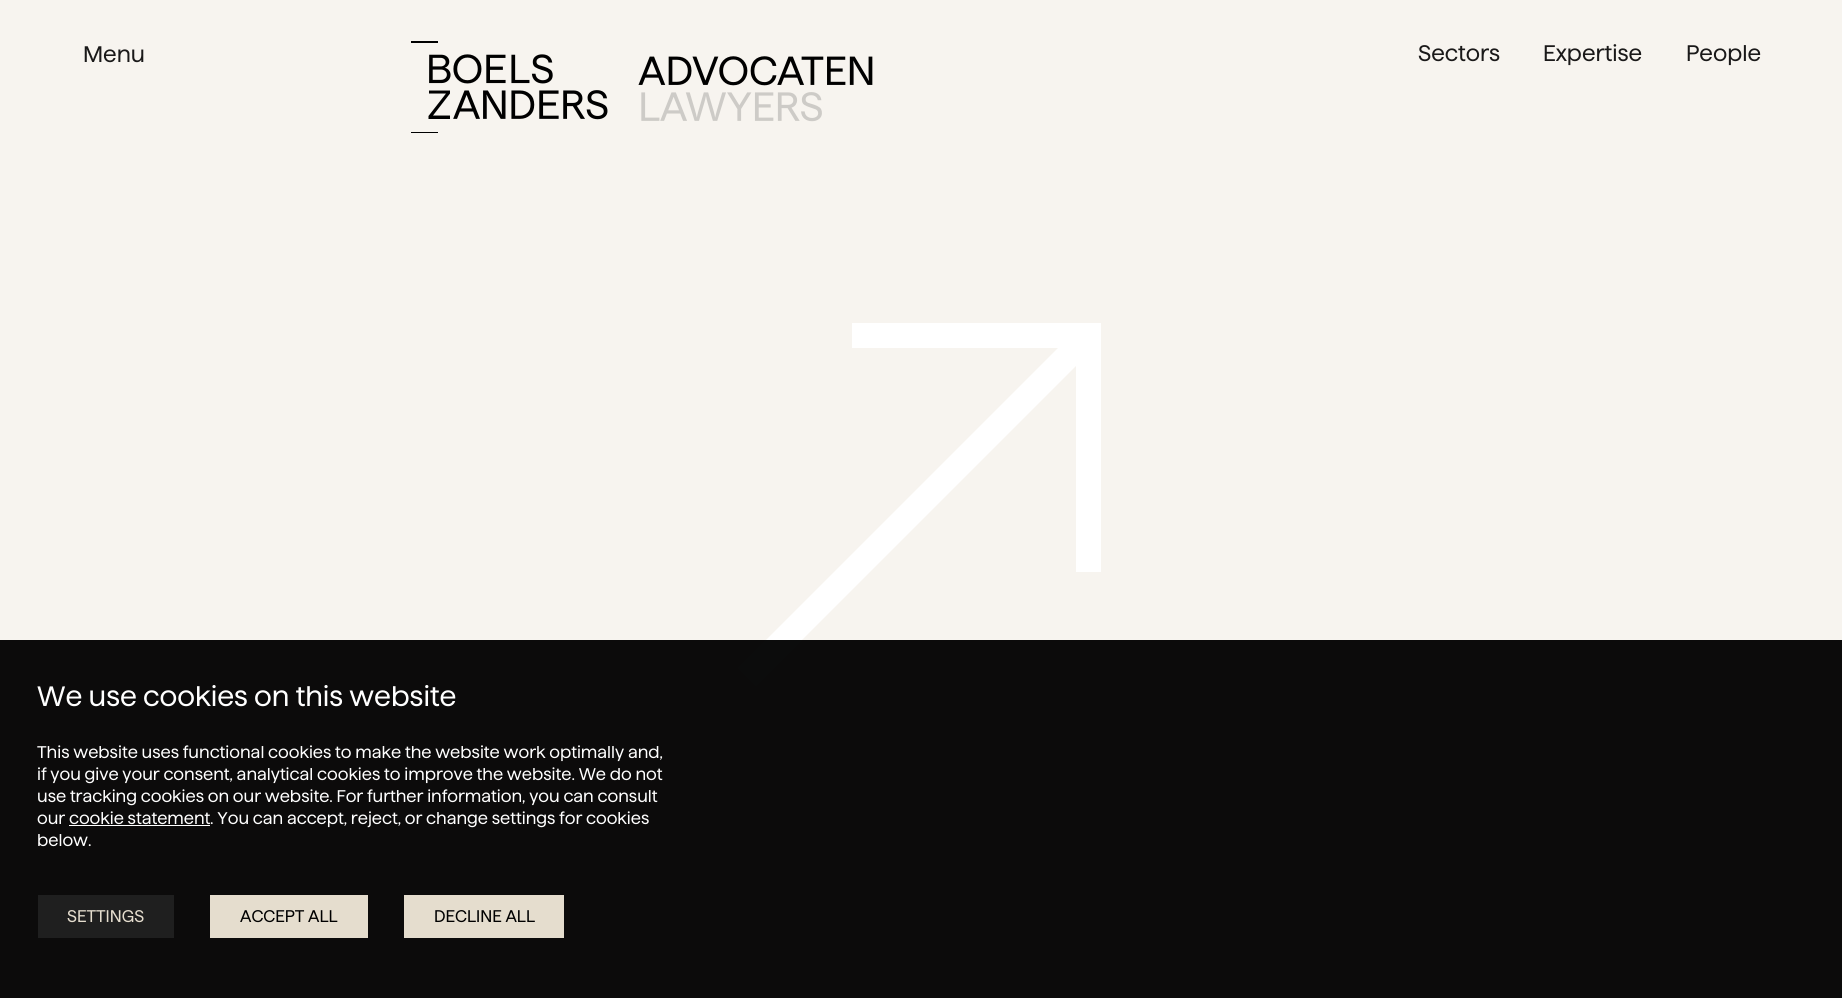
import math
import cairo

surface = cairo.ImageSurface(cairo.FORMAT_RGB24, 1842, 998)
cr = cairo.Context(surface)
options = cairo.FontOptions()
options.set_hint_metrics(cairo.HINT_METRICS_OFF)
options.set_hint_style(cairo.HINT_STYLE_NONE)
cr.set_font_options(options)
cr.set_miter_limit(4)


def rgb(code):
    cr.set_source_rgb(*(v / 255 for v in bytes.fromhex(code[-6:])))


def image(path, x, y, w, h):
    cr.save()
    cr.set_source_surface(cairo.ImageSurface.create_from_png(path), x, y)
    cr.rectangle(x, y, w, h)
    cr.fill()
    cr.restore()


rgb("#f7f4ef")
cr.paint()
rgb("#000000")
cr.rectangle(411, 41, 27, 2)
cr.fill()
image("img/1.png", 429, 54, 22, 30)
image("img/2.png", 453, 54, 100, 30)
cr.new_path()
cr.move_to(450, 90.5)
cr.line_to(450, 93.5)
cr.line_to(433, 115.5)
cr.line_to(450, 115.5)
cr.line_to(450, 119)
cr.line_to(428.5, 119)
cr.line_to(428.5, 116)
cr.line_to(446, 93.5)
cr.line_to(429, 93.5)
cr.line_to(429, 90.5)
cr.close_path()
cr.fill()
image("img/3.png", 453, 90, 155, 30)
cr.rectangle(411, 132, 27, 1)
cr.fill()
image("img/4.png", 638, 56, 235, 30)
image("img/5.png", 641, 92, 181, 30)
rgb("#ffffff")
cr.new_path()
cr.move_to(1076, 323)
cr.line_to(852, 323)
cr.line_to(852, 348)
cr.line_to(1058, 348)
cr.line_to(738, 668)
cr.line_to(756, 686)
cr.line_to(1076, 366)
cr.line_to(1076, 572)
cr.line_to(1101, 572)
cr.line_to(1101, 323)
cr.close_path()
cr.fill()
cr.set_source_rgba(0, 0, 0, 0.95)
cr.rectangle(0, 640, 1842, 358)
cr.fill()
rgb("#ffffff")
cr.rectangle(69, 825, 141, 1)
cr.fill()
rgb("#1f1f1f")
cr.rectangle(38, 895, 136, 43)
cr.fill()
rgb("#e5ddce")
cr.rectangle(210, 895, 158, 43)
cr.rectangle(404, 895, 160, 43)
cr.fill()
cr.select_font_face("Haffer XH")
cr.set_font_size(22.5)
rgb("#1a1919")
for x, y, s in [
    (83, 62, "Menu"),
    (1418, 61, "Sectors"),
    (1543, 61, "Expertise"),
    (1686, 61, "People"),
]:
    cr.move_to(x, y)
    cr.show_text(s)
cr.set_font_size(28)
rgb("#ffffff")
cr.move_to(37, 706)
cr.show_text("We use cookies on this website")
cr.set_font_size(16.9)
for x, y, s in [
    (37, 758, "This website uses functional cookies to make the website work optimally and,"),
    (37, 780, "if you give your consent, analytical cookies to improve the website. We do not"),
    (37, 802, "use tracking cookies on our website. For further information, you can consult"),
    (37, 824, "our cookie statement"),
    (210, 824, ". You can accept, reject, or change settings for cookies"),
    (37, 846, "below."),
]:
    cr.move_to(x, y)
    cr.show_text(s)
rgb("#e5ddce")
cr.move_to(67, 922)
cr.show_text("SETTINGS")
rgb("#000000")
cr.move_to(240, 922)
cr.show_text("ACCEPT ALL")
cr.move_to(434, 922)
cr.show_text("DECLINE ALL")
surface.write_to_png("page.png")
